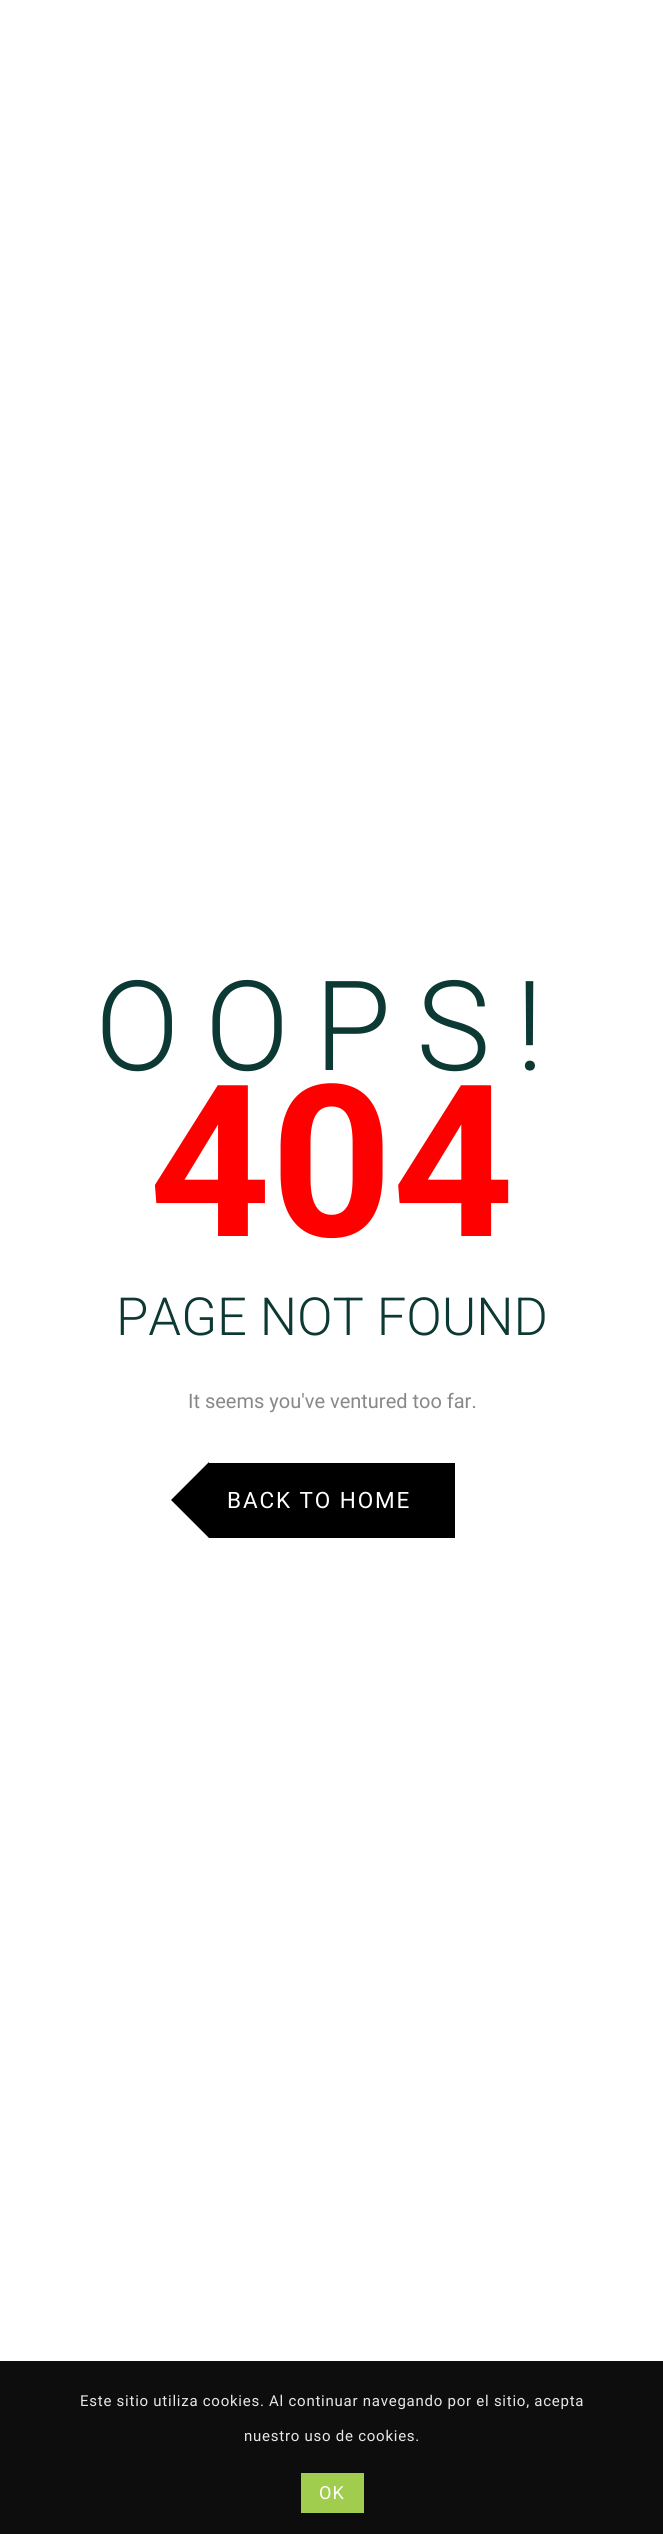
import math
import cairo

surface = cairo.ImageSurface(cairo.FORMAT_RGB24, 663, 2534)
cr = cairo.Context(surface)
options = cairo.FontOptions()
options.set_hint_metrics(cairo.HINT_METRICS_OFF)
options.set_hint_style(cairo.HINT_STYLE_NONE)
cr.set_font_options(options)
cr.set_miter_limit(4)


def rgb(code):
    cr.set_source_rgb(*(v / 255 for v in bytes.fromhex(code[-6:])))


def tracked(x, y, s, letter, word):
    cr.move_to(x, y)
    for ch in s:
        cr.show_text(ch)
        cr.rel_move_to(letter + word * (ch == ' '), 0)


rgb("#ffffff")
cr.paint()
rgb("#000000")
cr.rectangle(209, 1463, 246, 75)
cr.fill()
cr.new_path()
cr.move_to(209, 1462)
cr.line_to(209, 1538)
cr.line_to(171, 1500)
cr.close_path()
cr.fill()
rgb("#0d0d0d")
cr.rectangle(0, 2361, 663, 173)
cr.fill()
rgb("#a0cd4e")
cr.rectangle(301, 2473, 63, 40)
cr.fill()
cr.select_font_face("Roboto Light")
cr.set_font_size(125)
rgb("#0d3934")
tracked(95, 1070, "OOPS!", 25, 0)
cr.select_font_face("Roboto", cairo.FONT_SLANT_NORMAL, cairo.FONT_WEIGHT_BOLD)
cr.set_font_size(212)
rgb("#ff0000")
cr.move_to(149, 1236)
cr.show_text("404")
cr.select_font_face("Roboto Light")
cr.set_font_size(52.5)
rgb("#0d3934")
cr.move_to(116, 1335)
cr.show_text("PAGE NOT FOUND")
cr.select_font_face("Roboto")
cr.set_font_size(20)
rgb("#888888")
cr.move_to(188, 1408)
cr.show_text("It seems you've ventured too far.")
cr.set_font_size(22.5)
rgb("#ffffff")
tracked(227, 1508, "BACK TO HOME", 1.9, 0)
cr.set_font_size(15)
rgb("#e7e7e7")
tracked(80, 2406, "Este sitio utiliza cookies. Al continuar navegando por el sitio, acepta", 0.75, 0)
tracked(244, 2441, "nuestro uso de cookies.", 0.75, 0)
cr.set_font_size(18)
rgb("#ffffff")
tracked(319, 2499, "OK", 1, 0)
surface.write_to_png("page.png")
